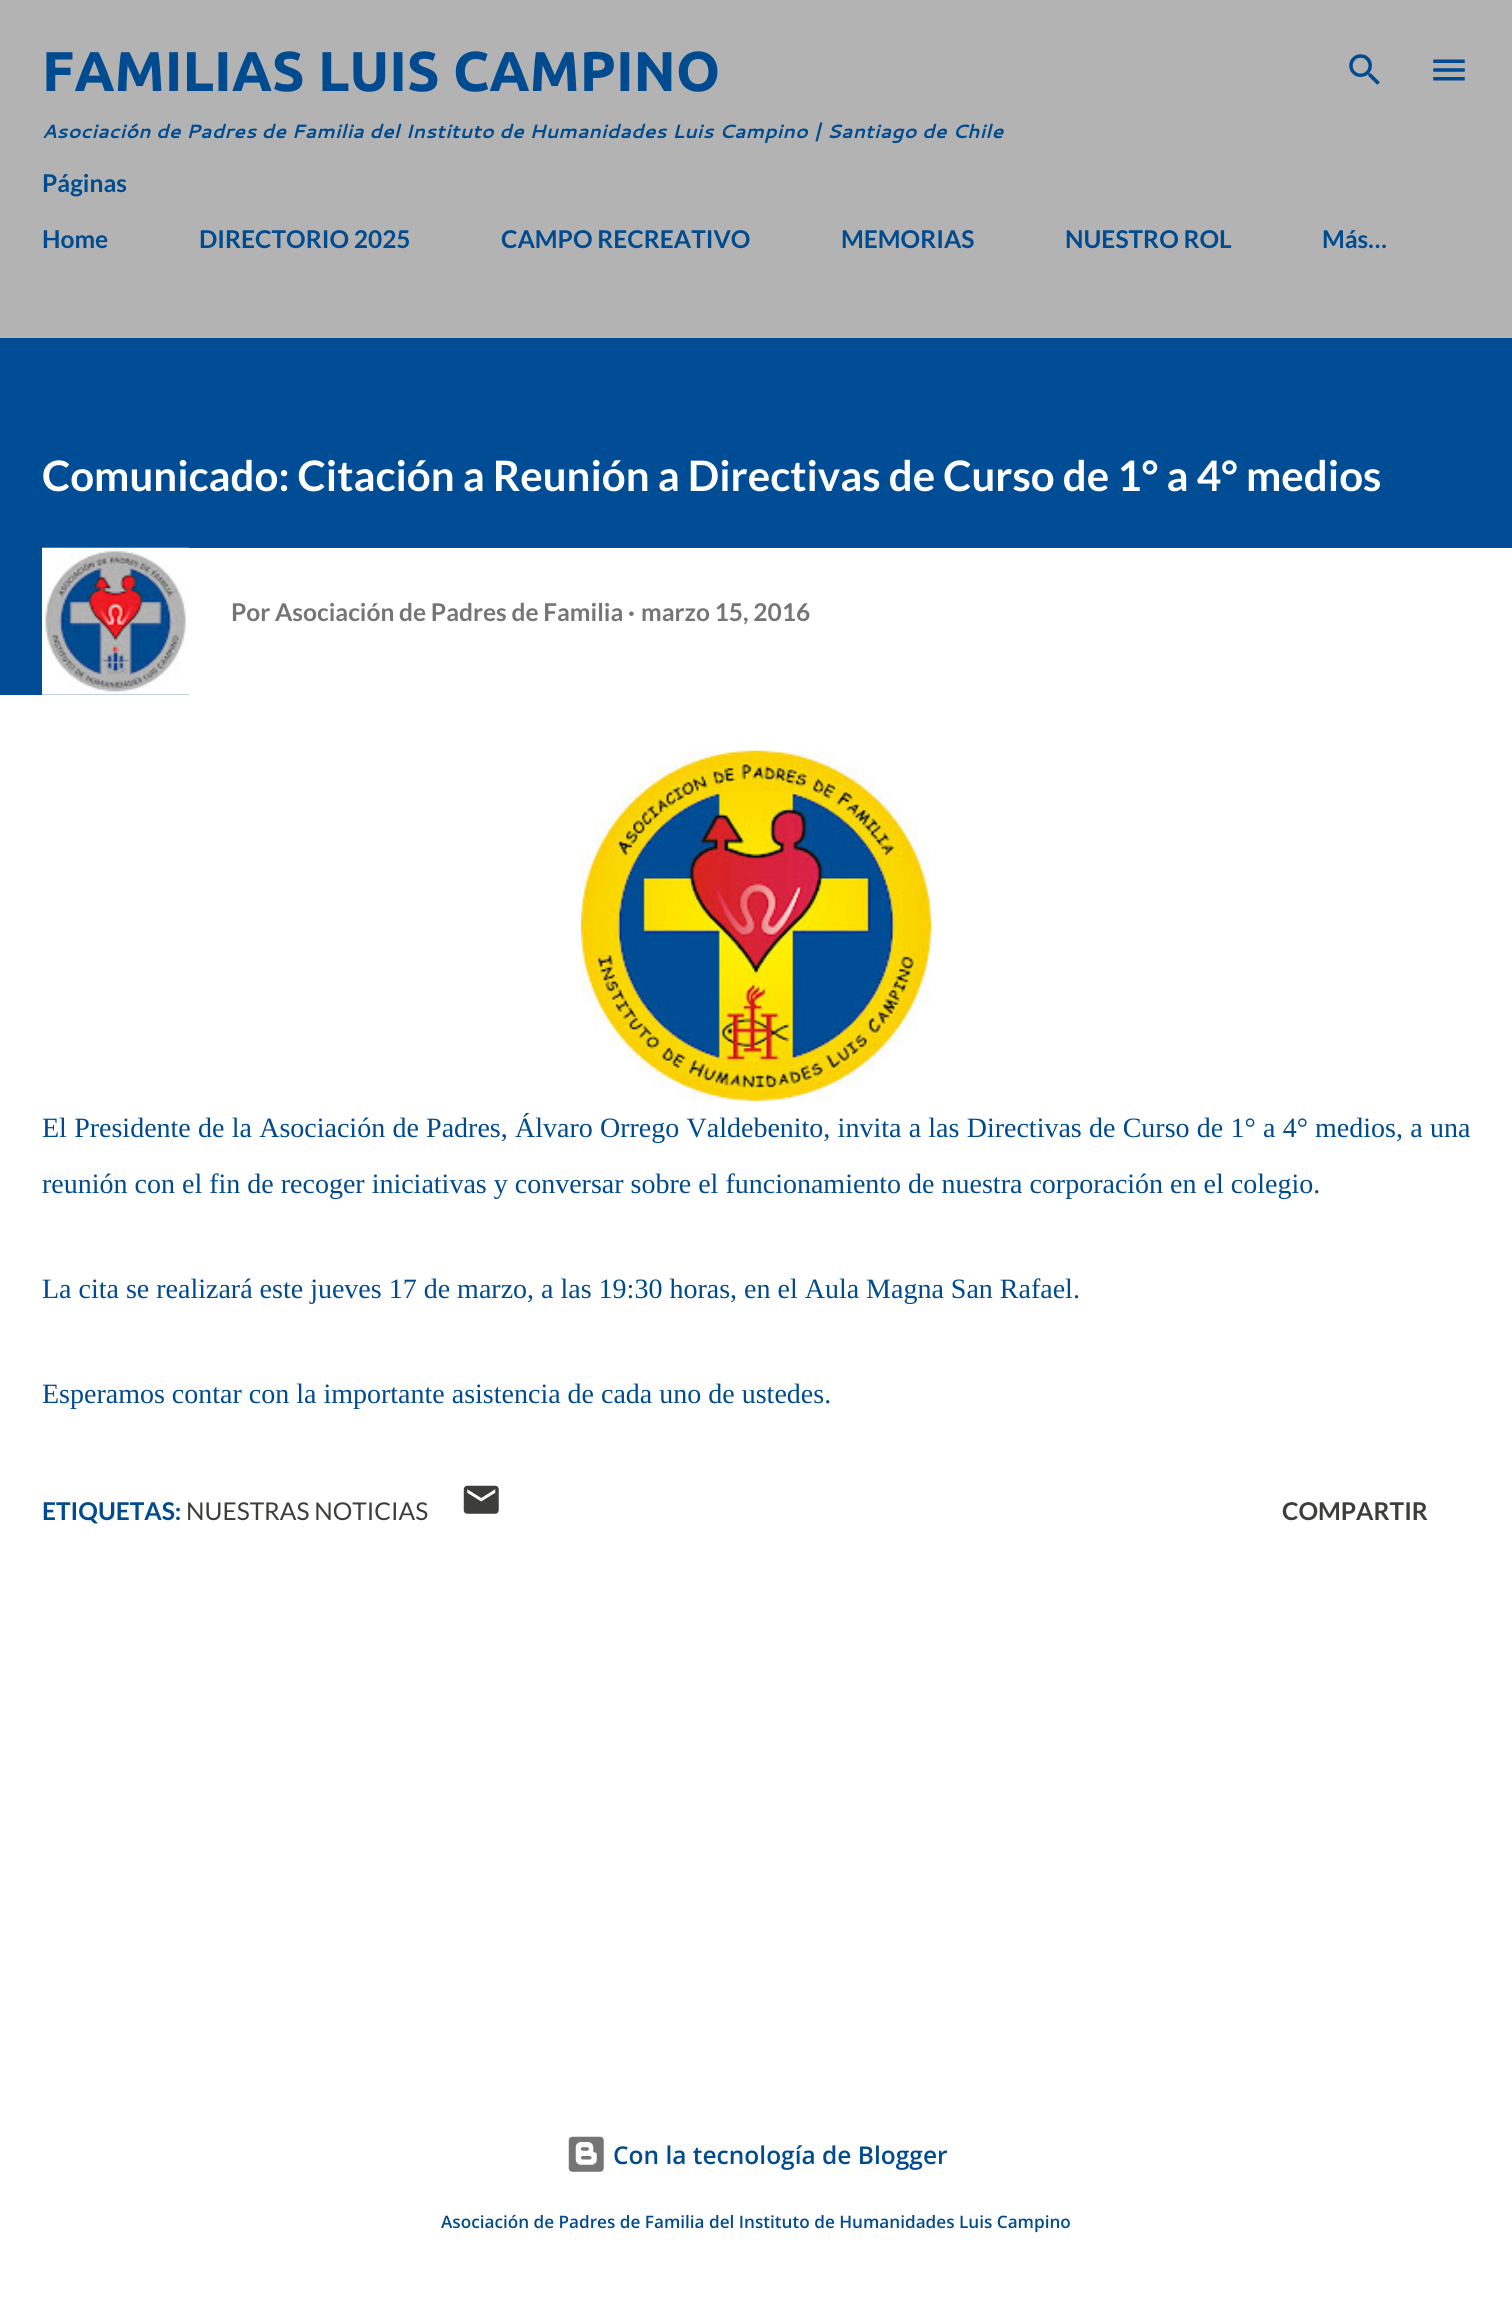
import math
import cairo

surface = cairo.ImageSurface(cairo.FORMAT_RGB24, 1512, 2299)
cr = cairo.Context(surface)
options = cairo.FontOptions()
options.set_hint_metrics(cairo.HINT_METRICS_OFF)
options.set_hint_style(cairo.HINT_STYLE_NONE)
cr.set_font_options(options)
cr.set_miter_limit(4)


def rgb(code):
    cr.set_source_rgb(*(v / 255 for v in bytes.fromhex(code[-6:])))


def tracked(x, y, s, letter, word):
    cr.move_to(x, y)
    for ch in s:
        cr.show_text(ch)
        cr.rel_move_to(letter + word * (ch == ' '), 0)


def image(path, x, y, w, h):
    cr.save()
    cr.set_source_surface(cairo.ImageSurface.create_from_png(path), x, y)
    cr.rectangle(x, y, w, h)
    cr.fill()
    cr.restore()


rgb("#ffffff")
cr.paint()
rgb("#b3b3b3")
cr.rectangle(0, 0, 1512, 338)
cr.fill()
image("img/1.png", 1349, 54, 31, 31)
image("img/2.png", 1433, 59, 32, 22)
rgb("#004d95")
cr.rectangle(0, 338, 1512, 210)
cr.fill()
cr.rectangle(0, 548, 189, 147)
cr.fill()
image("img/3.png", 42, 547, 147, 148)
image("img/4.png", 581, 750, 350, 351)
image("img/5.png", 463, 1485, 36, 29)
image("img/6.png", 568, 2136, 36, 36)
cr.select_font_face("Ubuntu", cairo.FONT_SLANT_NORMAL, cairo.FONT_WEIGHT_BOLD)
cr.set_font_size(56)
rgb("#004b8f")
cr.move_to(42, 91)
cr.show_text("FAMILIAS LUIS CAMPINO")
cr.select_font_face("Cantarell", cairo.FONT_SLANT_ITALIC, cairo.FONT_WEIGHT_BOLD)
cr.set_font_size(19.25)
cr.move_to(42, 138)
cr.show_text("Asociación de Padres de Familia del Instituto de Humanidades Luis Campino | Santiago de Chile")
cr.select_font_face("Lato", cairo.FONT_SLANT_NORMAL, cairo.FONT_WEIGHT_BOLD)
cr.set_font_size(24.5)
for x, y, s in [
    (42, 192, "Páginas"),
    (42, 248, "Home"),
    (199, 248, "DIRECTORIO 2025"),
    (501, 248, "CAMPO RECREATIVO"),
    (841, 248, "MEMORIAS"),
    (1065, 248, "NUESTRO ROL"),
    (1322, 248, "Más…"),
]:
    cr.move_to(x, y)
    cr.show_text(s)
cr.set_font_size(42)
rgb("#ffffff")
cr.move_to(42, 491)
cr.show_text("Comunicado: Citación a Reunión a Directivas de Curso de 1° a 4° medios")
cr.set_font_size(24.5)
rgb("#757575")
cr.move_to(231, 621)
cr.show_text("Por Asociación de Padres de Familia ·")
cr.move_to(641, 621)
cr.show_text("marzo 15, 2016")
cr.select_font_face("Liberation Serif")
cr.set_font_size(28)
rgb("#004b8f")
tracked(42, 1137, "El Presidente de la Asociación de Padres, Álvaro Orrego Valdebenito, invita a las Directivas de Curso de 1° a 4° medios, a una", 0, 0.25)
for x, y, s in [
    (42, 1193, "reunión con el fin de recoger iniciativas y conversar sobre el funcionamiento de nuestra corporación en el colegio."),
    (42, 1298, "La cita se realizará este jueves 17 de marzo, a las 19:30 horas, en el Aula Magna San Rafael."),
    (42, 1403, "Esperamos contar con la importante asistencia de cada uno de ustedes."),
]:
    cr.move_to(x, y)
    cr.show_text(s)
cr.select_font_face("Lato", cairo.FONT_SLANT_NORMAL, cairo.FONT_WEIGHT_BOLD)
cr.set_font_size(24.5)
cr.move_to(42, 1520)
cr.show_text("ETIQUETAS:")
cr.select_font_face("Lato")
rgb("#3d3e3b")
cr.move_to(186, 1520)
cr.show_text("NUESTRAS NOTICIAS")
cr.select_font_face("Lato", cairo.FONT_SLANT_NORMAL, cairo.FONT_WEIGHT_BOLD)
cr.move_to(1282, 1520)
cr.show_text("COMPARTIR")
cr.select_font_face("Open Sans SemiBold")
rgb("#004b8f")
cr.move_to(613, 2164)
cr.show_text("Con la tecnología de Blogger")
cr.set_font_size(17.15)
cr.move_to(441, 2228)
cr.show_text("Asociación de Padres de Familia del Instituto de Humanidades Luis Campino")
surface.write_to_png("page.png")
